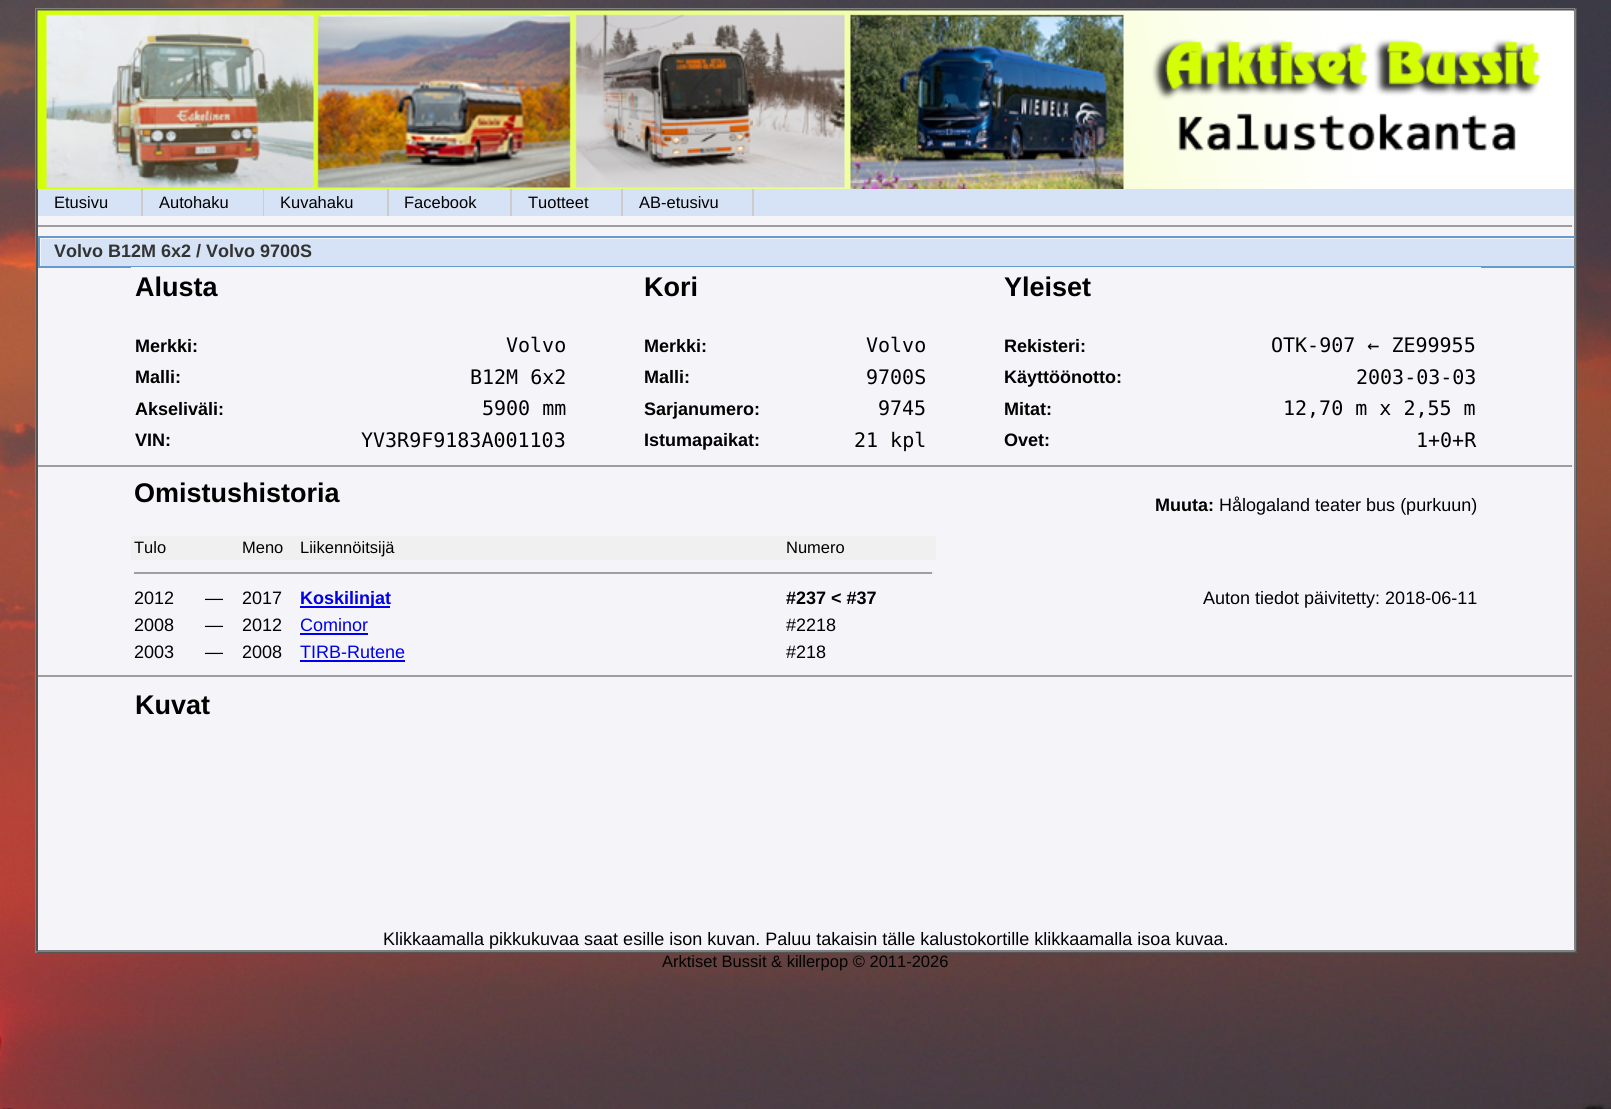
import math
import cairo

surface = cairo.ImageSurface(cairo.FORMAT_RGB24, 1611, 1109)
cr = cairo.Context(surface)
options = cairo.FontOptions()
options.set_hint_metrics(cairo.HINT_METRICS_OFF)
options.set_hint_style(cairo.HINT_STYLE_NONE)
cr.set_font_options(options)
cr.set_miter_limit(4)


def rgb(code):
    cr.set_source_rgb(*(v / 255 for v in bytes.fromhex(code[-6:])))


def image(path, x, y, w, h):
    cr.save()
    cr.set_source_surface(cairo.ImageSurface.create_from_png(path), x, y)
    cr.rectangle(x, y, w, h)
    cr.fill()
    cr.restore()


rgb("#ffffff")
cr.paint()
image("img/1.png", 0, 0, 1611, 1109)
for x, y, w, h, color in [
    (35, 8, 1542, 1, "#808080"),
    (1575, 8, 2, 945, "#555555"),
    (35, 951, 1542, 2, "#555555"),
    (35, 8, 2, 945, "#808080"),
    (38, 11, 1536, 939, "#f5f5f9"),
    (36, 9, 1539, 2, "#555555"),
    (1574, 9, 2, 942, "#808080"),
    (36, 950, 1539, 2, "#808080"),
    (36, 9, 2, 942, "#555555"),
]:
    rgb(color)
    cr.rectangle(x, y, w, h)
    cr.fill()
image("img/2.png", 37, 10, 1537, 179)
for x, y, w, h, color in [
    (38, 189, 1536, 27, "#d6e2f5"),
    (141, 189, 2, 27, "#cccccc"),
    (263, 189, 1, 27, "#cccccc"),
    (387, 189, 2, 27, "#cccccc"),
    (510, 189, 2, 27, "#cccccc"),
    (621, 189, 2, 27, "#cccccc"),
    (752, 189, 2, 27, "#cccccc"),
    (38, 225, 1536, 2, "#9f9f9f"),
    (1572, 225, 2, 2, "#eeeeee"),
    (41, 239, 1533, 27, "#d6e2f5"),
    (38, 236, 1537, 2, "#6699cc"),
    (38, 266, 1537, 2, "#6699cc"),
    (38, 236, 2, 31, "#6699cc"),
    (131, 267, 1350, 1, "#f5f5f9"),
    (38, 465, 1536, 2, "#9f9f9f"),
    (1572, 465, 2, 2, "#eeeeee"),
    (131, 536, 805, 24, "#f0f0f0"),
    (134, 572, 799, 2, "#9f9f9f"),
    (932, 572, 2, 2, "#eeeeee"),
    (300, 606, 90, 2, "#0000ee"),
    (300, 633, 68, 2, "#0000ee"),
    (300, 660, 105, 2, "#0000ee"),
    (38, 675, 1536, 2, "#9f9f9f"),
    (1572, 675, 2, 2, "#eeeeee"),
]:
    rgb(color)
    cr.rectangle(x, y, w, h)
    cr.fill()
cr.select_font_face("Liberation Sans")
cr.set_font_size(16.5)
rgb("#000000")
for x, y, s in [
    (54, 208, "Etusivu"),
    (159, 208, "Autohaku"),
    (280, 208, "Kuvahaku"),
    (404, 208, "Facebook"),
    (528, 208, "Tuotteet"),
    (639, 208, "AB-etusivu"),
]:
    cr.move_to(x, y)
    cr.show_text(s)
cr.select_font_face("Liberation Sans", cairo.FONT_SLANT_NORMAL, cairo.FONT_WEIGHT_BOLD)
cr.set_font_size(18)
rgb("#333333")
cr.move_to(54, 257)
cr.show_text("Volvo B12M 6x2 / Volvo 9700S")
cr.set_font_size(27)
rgb("#000000")
for x, y, s in [
    (135, 296, "Alusta"),
    (644, 296, "Kori"),
    (1004, 296, "Yleiset"),
]:
    cr.move_to(x, y)
    cr.show_text(s)
cr.set_font_size(18)
cr.move_to(135, 352)
cr.show_text("Merkki:")
cr.select_font_face("DejaVu Sans Mono")
cr.set_font_size(20)
cr.move_to(506, 352)
cr.show_text("Volvo")
cr.select_font_face("Liberation Sans", cairo.FONT_SLANT_NORMAL, cairo.FONT_WEIGHT_BOLD)
cr.set_font_size(18)
cr.move_to(644, 352)
cr.show_text("Merkki:")
cr.select_font_face("DejaVu Sans Mono")
cr.set_font_size(20)
cr.move_to(866, 352)
cr.show_text("Volvo")
cr.select_font_face("Liberation Sans", cairo.FONT_SLANT_NORMAL, cairo.FONT_WEIGHT_BOLD)
cr.set_font_size(18)
cr.move_to(1004, 352)
cr.show_text("Rekisteri:")
cr.select_font_face("DejaVu Sans Mono")
cr.set_font_size(20)
cr.move_to(1271, 352)
cr.show_text("OTK-907 ← ZE99955")
cr.select_font_face("Liberation Sans", cairo.FONT_SLANT_NORMAL, cairo.FONT_WEIGHT_BOLD)
cr.set_font_size(18)
cr.move_to(135, 383)
cr.show_text("Malli:")
cr.select_font_face("DejaVu Sans Mono")
cr.set_font_size(20)
cr.move_to(470, 384)
cr.show_text("B12M 6x2")
cr.select_font_face("Liberation Sans", cairo.FONT_SLANT_NORMAL, cairo.FONT_WEIGHT_BOLD)
cr.set_font_size(18)
cr.move_to(644, 383)
cr.show_text("Malli:")
cr.select_font_face("DejaVu Sans Mono")
cr.set_font_size(20)
cr.move_to(866, 384)
cr.show_text("9700S")
cr.select_font_face("Liberation Sans", cairo.FONT_SLANT_NORMAL, cairo.FONT_WEIGHT_BOLD)
cr.set_font_size(18)
cr.move_to(1004, 383)
cr.show_text("Käyttöönotto:")
cr.select_font_face("DejaVu Sans Mono")
cr.set_font_size(20)
cr.move_to(1356, 384)
cr.show_text("2003-03-03")
cr.select_font_face("Liberation Sans", cairo.FONT_SLANT_NORMAL, cairo.FONT_WEIGHT_BOLD)
cr.set_font_size(18)
cr.move_to(135, 415)
cr.show_text("Akseliväli:")
cr.select_font_face("DejaVu Sans Mono")
cr.set_font_size(20)
cr.move_to(482, 415)
cr.show_text("5900 mm")
cr.select_font_face("Liberation Sans", cairo.FONT_SLANT_NORMAL, cairo.FONT_WEIGHT_BOLD)
cr.set_font_size(18)
cr.move_to(644, 415)
cr.show_text("Sarjanumero:")
cr.select_font_face("DejaVu Sans Mono")
cr.set_font_size(20)
cr.move_to(878, 415)
cr.show_text("9745")
cr.select_font_face("Liberation Sans", cairo.FONT_SLANT_NORMAL, cairo.FONT_WEIGHT_BOLD)
cr.set_font_size(18)
cr.move_to(1004, 415)
cr.show_text("Mitat:")
cr.select_font_face("DejaVu Sans Mono")
cr.set_font_size(20)
cr.move_to(1283, 415)
cr.show_text("12,70 m x 2,55 m")
cr.select_font_face("Liberation Sans", cairo.FONT_SLANT_NORMAL, cairo.FONT_WEIGHT_BOLD)
cr.set_font_size(18)
cr.move_to(135, 446)
cr.show_text("VIN:")
cr.select_font_face("DejaVu Sans Mono")
cr.set_font_size(20)
cr.move_to(361, 447)
cr.show_text("YV3R9F9183A001103")
cr.select_font_face("Liberation Sans", cairo.FONT_SLANT_NORMAL, cairo.FONT_WEIGHT_BOLD)
cr.set_font_size(18)
cr.move_to(644, 446)
cr.show_text("Istumapaikat:")
cr.select_font_face("DejaVu Sans Mono")
cr.set_font_size(20)
cr.move_to(854, 447)
cr.show_text("21 kpl")
cr.select_font_face("Liberation Sans", cairo.FONT_SLANT_NORMAL, cairo.FONT_WEIGHT_BOLD)
cr.set_font_size(18)
cr.move_to(1004, 446)
cr.show_text("Ovet:")
cr.select_font_face("DejaVu Sans Mono")
cr.set_font_size(20)
cr.move_to(1416, 447)
cr.show_text("1+0+R")
cr.select_font_face("Liberation Sans", cairo.FONT_SLANT_NORMAL, cairo.FONT_WEIGHT_BOLD)
cr.set_font_size(27)
cr.move_to(134, 502)
cr.show_text("Omistushistoria")
cr.set_font_size(18)
cr.move_to(1155, 511)
cr.show_text("Muuta:")
cr.select_font_face("Liberation Sans")
cr.move_to(1219, 511)
cr.show_text("Hålogaland teater bus (purkuun)")
cr.set_font_size(16.5)
for x, y, s in [
    (134, 553, "Tulo"),
    (242, 553, "Meno"),
    (300, 553, "Liikennöitsijä"),
    (786, 553, "Numero"),
]:
    cr.move_to(x, y)
    cr.show_text(s)
cr.set_font_size(18)
for x, y, s in [
    (134, 604, "2012"),
    (205, 604, "—"),
    (242, 604, "2017"),
]:
    cr.move_to(x, y)
    cr.show_text(s)
cr.select_font_face("Liberation Sans", cairo.FONT_SLANT_NORMAL, cairo.FONT_WEIGHT_BOLD)
rgb("#0000ee")
cr.move_to(300, 604)
cr.show_text("Koskilinjat")
rgb("#000000")
cr.move_to(786, 604)
cr.show_text("#237 < #37")
cr.select_font_face("Liberation Sans")
for x, y, s in [
    (1203, 604, "Auton tiedot päivitetty: 2018-06-11"),
    (134, 631, "2008"),
    (205, 631, "—"),
    (242, 631, "2012"),
]:
    cr.move_to(x, y)
    cr.show_text(s)
rgb("#0000ee")
cr.move_to(300, 631)
cr.show_text("Cominor")
rgb("#000000")
for x, y, s in [
    (786, 631, "#2218"),
    (134, 658, "2003"),
    (205, 658, "—"),
    (242, 658, "2008"),
]:
    cr.move_to(x, y)
    cr.show_text(s)
rgb("#0000ee")
cr.move_to(300, 658)
cr.show_text("TIRB-Rutene")
rgb("#000000")
cr.move_to(786, 658)
cr.show_text("#218")
cr.select_font_face("Liberation Sans", cairo.FONT_SLANT_NORMAL, cairo.FONT_WEIGHT_BOLD)
cr.set_font_size(27)
cr.move_to(135, 714)
cr.show_text("Kuvat")
cr.select_font_face("Liberation Sans")
cr.set_font_size(18)
cr.move_to(383, 945)
cr.show_text("Klikkaamalla pikkukuvaa saat esille ison kuvan. Paluu takaisin tälle kalustokortille klikkaamalla isoa kuvaa.")
cr.set_font_size(16.5)
cr.move_to(662, 967)
cr.show_text("Arktiset Bussit & killerpop © 2011-2026")
surface.write_to_png("page.png")
